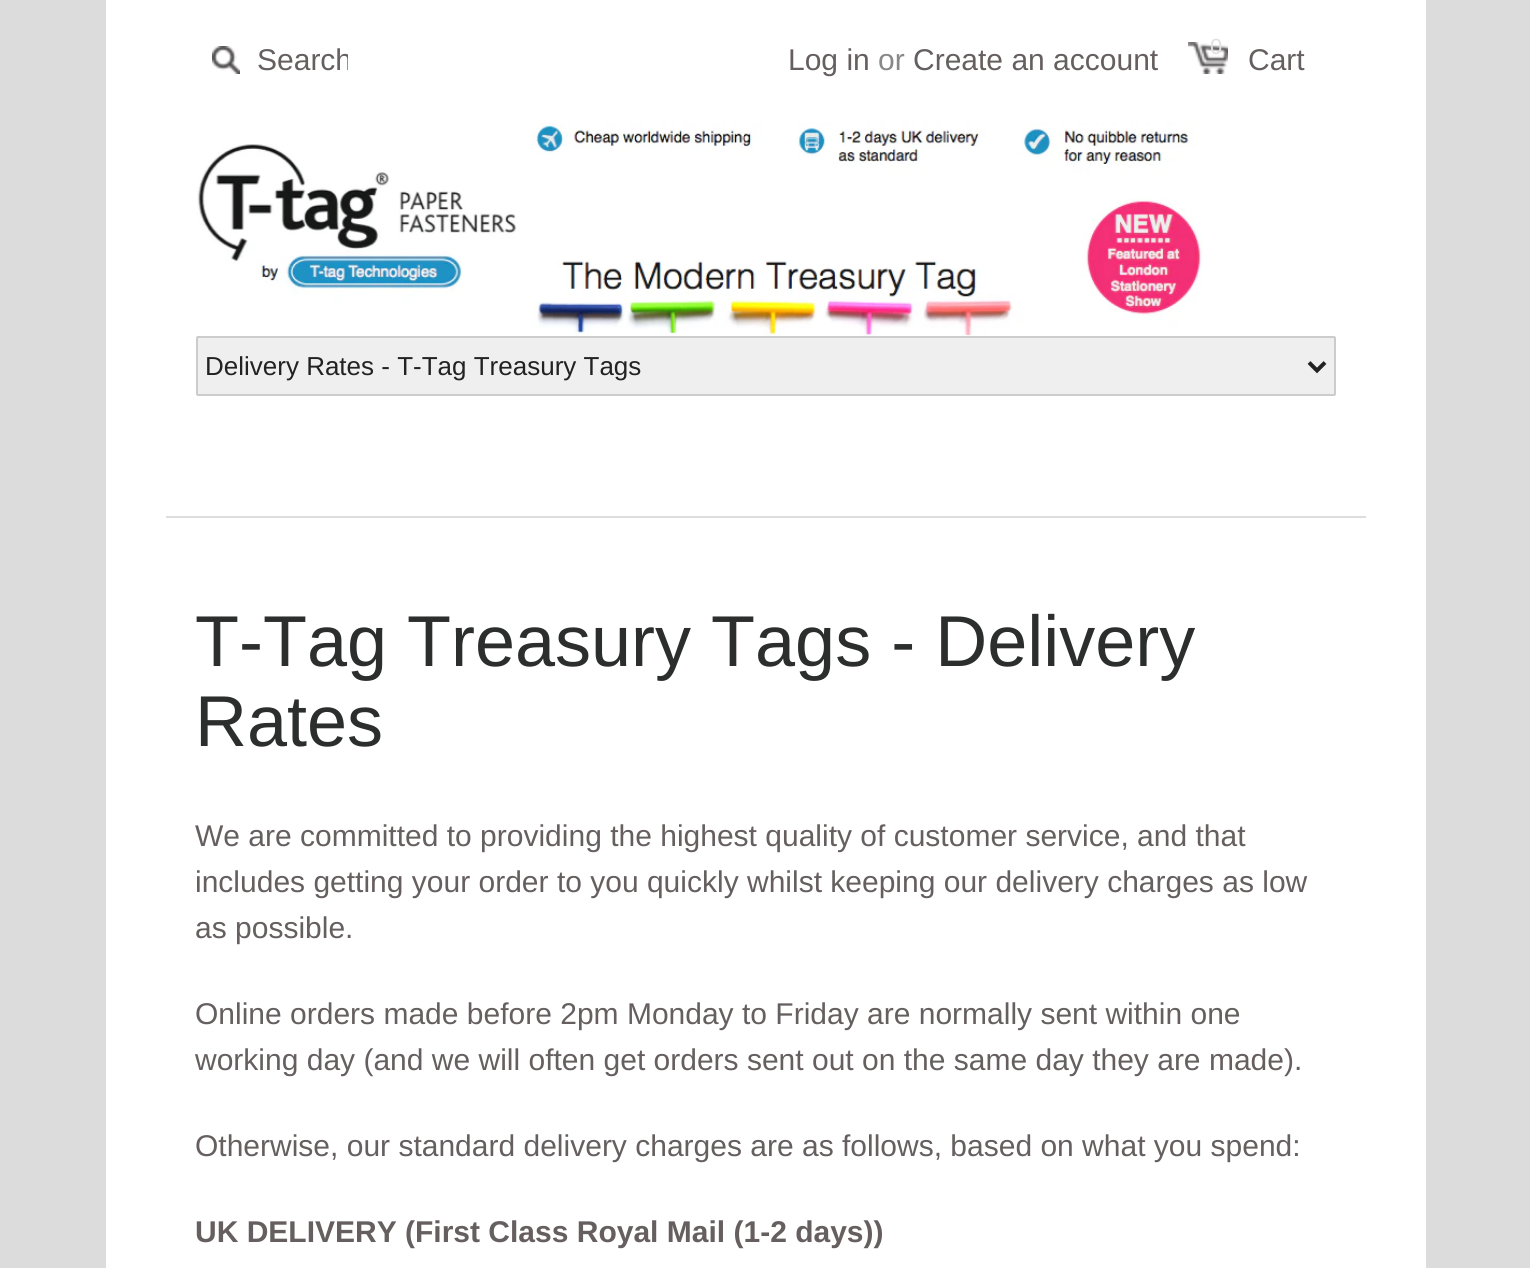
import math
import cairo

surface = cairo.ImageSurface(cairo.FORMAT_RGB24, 1530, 1268)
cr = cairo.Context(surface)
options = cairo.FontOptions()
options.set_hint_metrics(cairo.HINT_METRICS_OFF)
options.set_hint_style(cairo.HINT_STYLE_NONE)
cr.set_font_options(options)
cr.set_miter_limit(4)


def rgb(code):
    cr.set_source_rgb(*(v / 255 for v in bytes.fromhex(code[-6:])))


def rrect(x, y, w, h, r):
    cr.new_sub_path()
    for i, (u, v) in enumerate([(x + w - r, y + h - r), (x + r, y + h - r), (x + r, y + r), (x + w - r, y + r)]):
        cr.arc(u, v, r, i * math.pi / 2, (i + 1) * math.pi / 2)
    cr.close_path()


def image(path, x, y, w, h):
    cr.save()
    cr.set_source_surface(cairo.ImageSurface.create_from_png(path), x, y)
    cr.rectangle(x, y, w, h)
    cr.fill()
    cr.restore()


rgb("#dcdcdc")
cr.paint()
rgb("#ffffff")
cr.rectangle(106, 0, 1320, 1268)
cr.fill()
image("img/1.png", 212, 46, 28, 28)
image("img/2.png", 1188, 42, 40, 32)
image("img/3.png", 197, 122, 1006, 214)
rgb("#efefef")
rrect(197, 337, 1138, 58, 1)
cr.fill_preserve()
rgb("#cccccc")
cr.stroke()
cr.new_path()
cr.move_to(1309, 362.5)
cr.line_to(1317, 370.5)
cr.line_to(1325, 362.5)
rgb("#222222")
cr.set_line_width(4)
cr.stroke()
rgb("#dddddd")
cr.rectangle(166, 516, 1200, 2)
cr.fill()
cr.save()
cr.rectangle(258, 42, 90, 34)
cr.clip()
cr.select_font_face("Liberation Sans")
cr.set_font_size(30)
rgb("#665f5f")
cr.move_to(257, 70)
cr.show_text("Search")
cr.restore()
cr.select_font_face("Liberation Sans")
cr.set_font_size(30)
rgb("#665f5f")
cr.move_to(788, 70)
cr.show_text("Log in")
rgb("#888888")
cr.move_to(878, 70)
cr.show_text("or")
rgb("#665f5f")
cr.move_to(913, 70)
cr.show_text("Create an account")
cr.set_font_size(22)
rgb("#e0e0e0")
cr.move_to(1210, 54)
cr.show_text("0")
cr.set_font_size(30)
rgb("#665f5f")
cr.move_to(1248, 70)
cr.show_text("Cart")
cr.set_font_size(26)
rgb("#222222")
cr.move_to(205, 375)
cr.show_text("Delivery Rates - T-Tag Treasury Tags")
cr.set_font_size(72)
rgb("#2c2e2e")
cr.move_to(195, 666)
cr.show_text("T-Tag Treasury Tags - Delivery")
cr.move_to(195, 746)
cr.show_text("Rates")
cr.set_font_size(30)
rgb("#665f5f")
for x, y, s in [
    (195, 846, "We are committed to providing the highest quality of customer service, and that"),
    (195, 892, "includes getting your order to you quickly whilst keeping our delivery charges as low"),
    (195, 938, "as possible."),
    (195, 1024, "Online orders made before 2pm Monday to Friday are normally sent within one"),
    (195, 1070, "working day (and we will often get orders sent out on the same day they are made)."),
    (195, 1156, "Otherwise, our standard delivery charges are as follows, based on what you spend:"),
]:
    cr.move_to(x, y)
    cr.show_text(s)
cr.select_font_face("Liberation Sans", cairo.FONT_SLANT_NORMAL, cairo.FONT_WEIGHT_BOLD)
cr.move_to(195, 1242)
cr.show_text("UK DELIVERY (First Class Royal Mail (1-2 days))")
surface.write_to_png("page.png")
